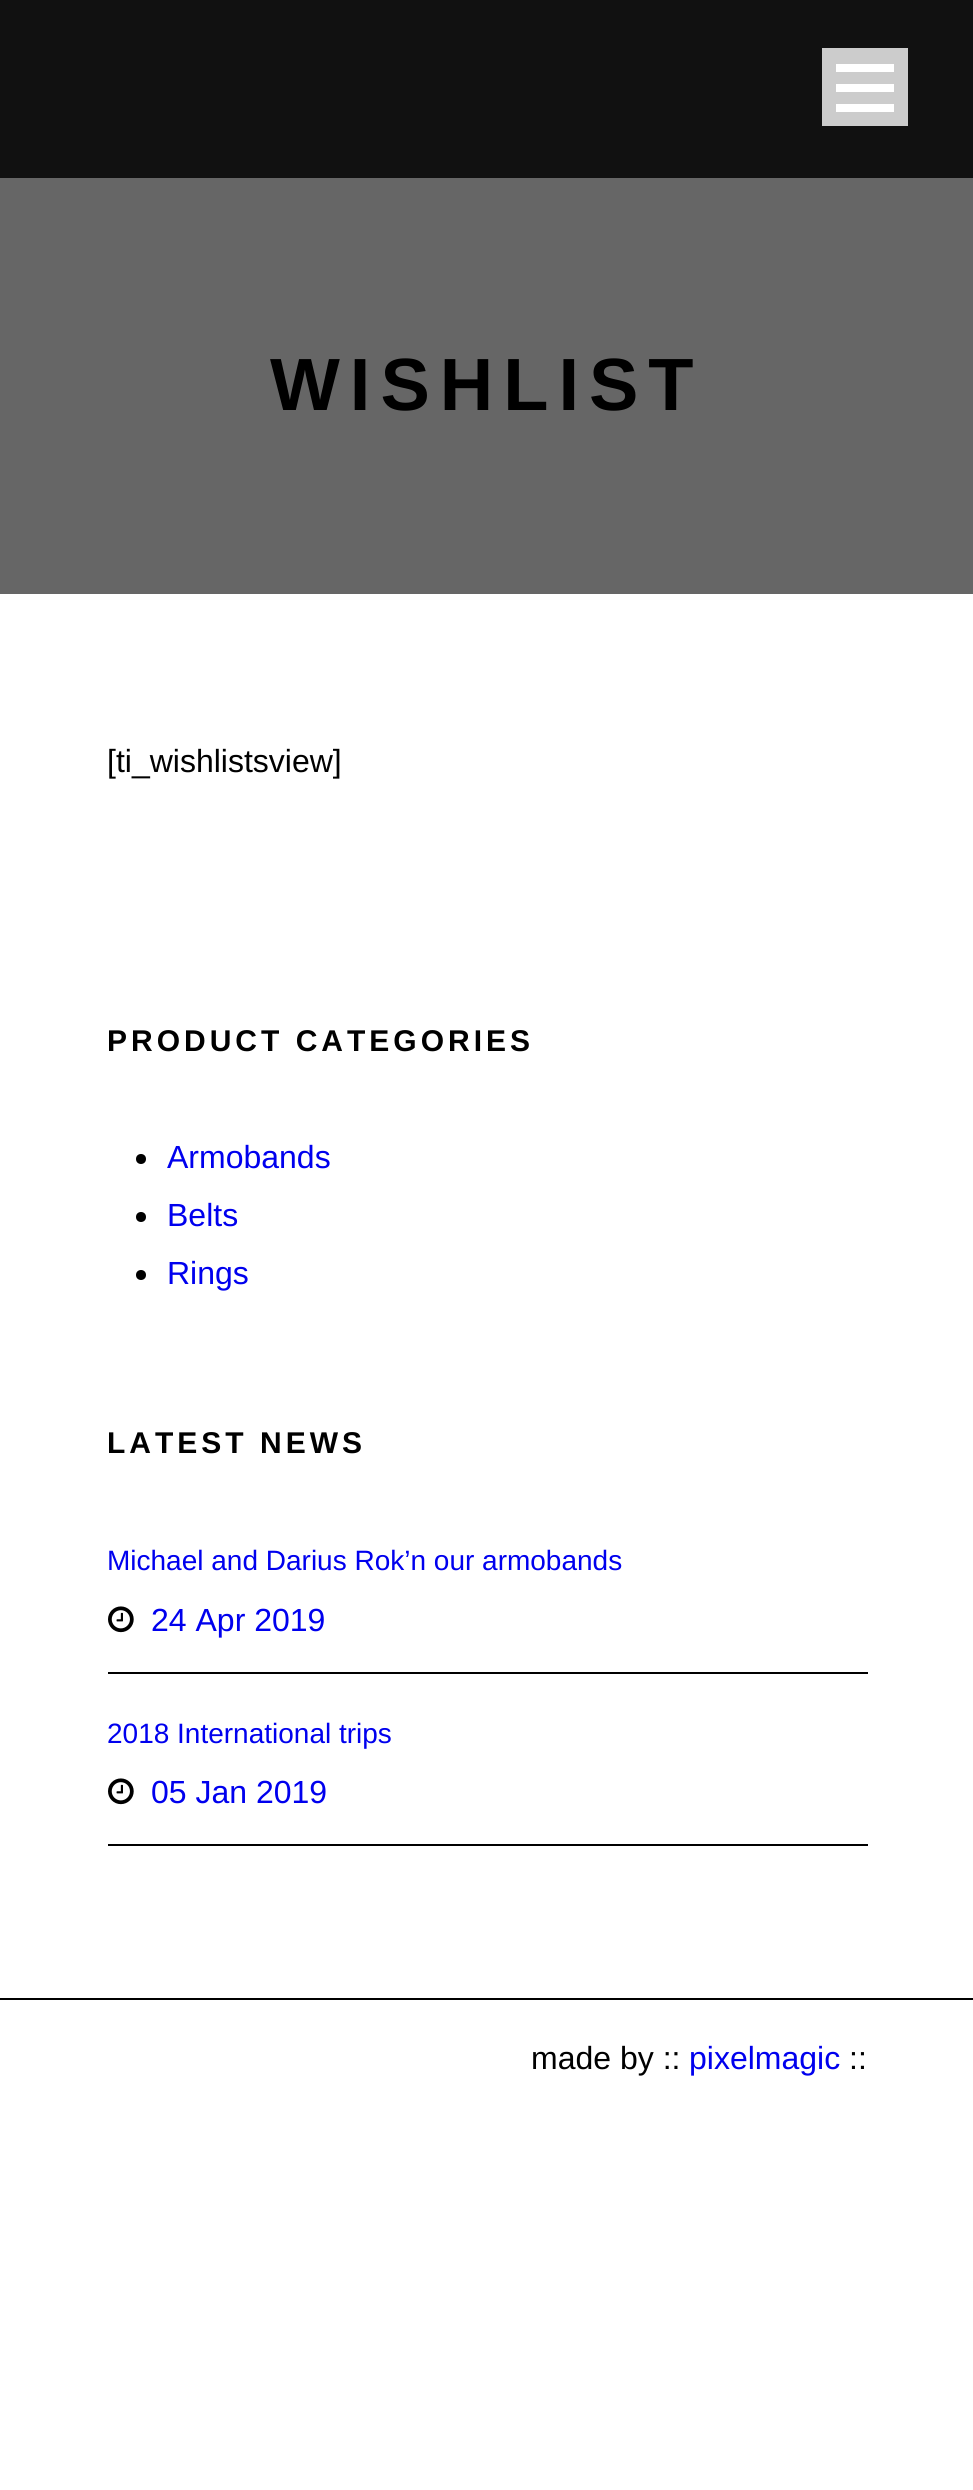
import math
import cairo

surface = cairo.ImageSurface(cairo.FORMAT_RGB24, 973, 2490)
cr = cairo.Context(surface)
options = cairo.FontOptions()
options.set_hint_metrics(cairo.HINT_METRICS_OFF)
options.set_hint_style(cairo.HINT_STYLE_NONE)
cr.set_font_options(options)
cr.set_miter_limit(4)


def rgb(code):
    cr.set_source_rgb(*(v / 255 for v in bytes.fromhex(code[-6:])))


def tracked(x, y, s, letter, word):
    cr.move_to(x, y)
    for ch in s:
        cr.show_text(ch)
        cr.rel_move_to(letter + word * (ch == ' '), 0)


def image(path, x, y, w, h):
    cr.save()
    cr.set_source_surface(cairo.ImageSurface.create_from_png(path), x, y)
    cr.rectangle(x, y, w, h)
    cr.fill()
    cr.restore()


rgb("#ffffff")
cr.paint()
for x, y, w, h, color in [
    (0, 0, 973, 178, "#111111"),
    (822, 48, 86, 78, "#cccccc"),
    (836, 104, 58, 8, "#ffffff"),
    (836, 84, 58, 8, "#ffffff"),
    (836, 64, 58, 8, "#ffffff"),
    (0, 178, 973, 416, "#666666"),
]:
    rgb(color)
    cr.rectangle(x, y, w, h)
    cr.fill()
rgb("#000000")
cr.arc(141, 1159, 5, 0, 2 * math.pi)
cr.fill()
cr.arc(141, 1217, 5, 0, 2 * math.pi)
cr.fill()
cr.arc(141, 1275, 5, 0, 2 * math.pi)
cr.fill()
cr.rectangle(108, 1672, 760, 2)
cr.fill()
image("img/1.png", 108, 1606, 26, 27)
cr.rectangle(108, 1844, 760, 2)
cr.fill()
image("img/1.png", 108, 1778, 26, 27)
cr.rectangle(0, 1998, 973, 2)
cr.fill()
cr.select_font_face("Liberation Sans", cairo.FONT_SLANT_NORMAL, cairo.FONT_WEIGHT_BOLD)
cr.set_font_size(74)
tracked(270, 410, "WISHLIST", 10, 0)
cr.select_font_face("Liberation Sans")
cr.set_font_size(32)
cr.move_to(107, 772)
cr.show_text("[ti_wishlistsview]")
cr.select_font_face("Liberation Sans", cairo.FONT_SLANT_NORMAL, cairo.FONT_WEIGHT_BOLD)
cr.set_font_size(30)
tracked(107, 1051, "PRODUCT CATEGORIES", 4, 0)
cr.select_font_face("Liberation Sans")
cr.set_font_size(32)
rgb("#0000ee")
for x, y, s in [
    (167, 1168, "Armobands"),
    (167, 1226, "Belts"),
    (167, 1284, "Rings"),
]:
    cr.move_to(x, y)
    cr.show_text(s)
cr.select_font_face("Liberation Sans", cairo.FONT_SLANT_NORMAL, cairo.FONT_WEIGHT_BOLD)
cr.set_font_size(30)
rgb("#000000")
tracked(107, 1453, "LATEST NEWS", 4, 0)
cr.select_font_face("Liberation Sans")
cr.set_font_size(28)
rgb("#0000ee")
cr.move_to(107, 1570)
cr.show_text("Michael and Darius Rok’n our armobands")
cr.set_font_size(32)
cr.move_to(151, 1631)
cr.show_text("24 Apr 2019")
cr.set_font_size(28)
cr.move_to(107, 1743)
cr.show_text("2018 International trips")
cr.set_font_size(32)
cr.move_to(151, 1803)
cr.show_text("05 Jan 2019")
rgb("#000000")
cr.move_to(531, 2069)
cr.show_text("made by ::")
rgb("#0000ee")
cr.move_to(689, 2069)
cr.show_text("pixelmagic")
rgb("#000000")
cr.move_to(849, 2069)
cr.show_text("::")
surface.write_to_png("page.png")
